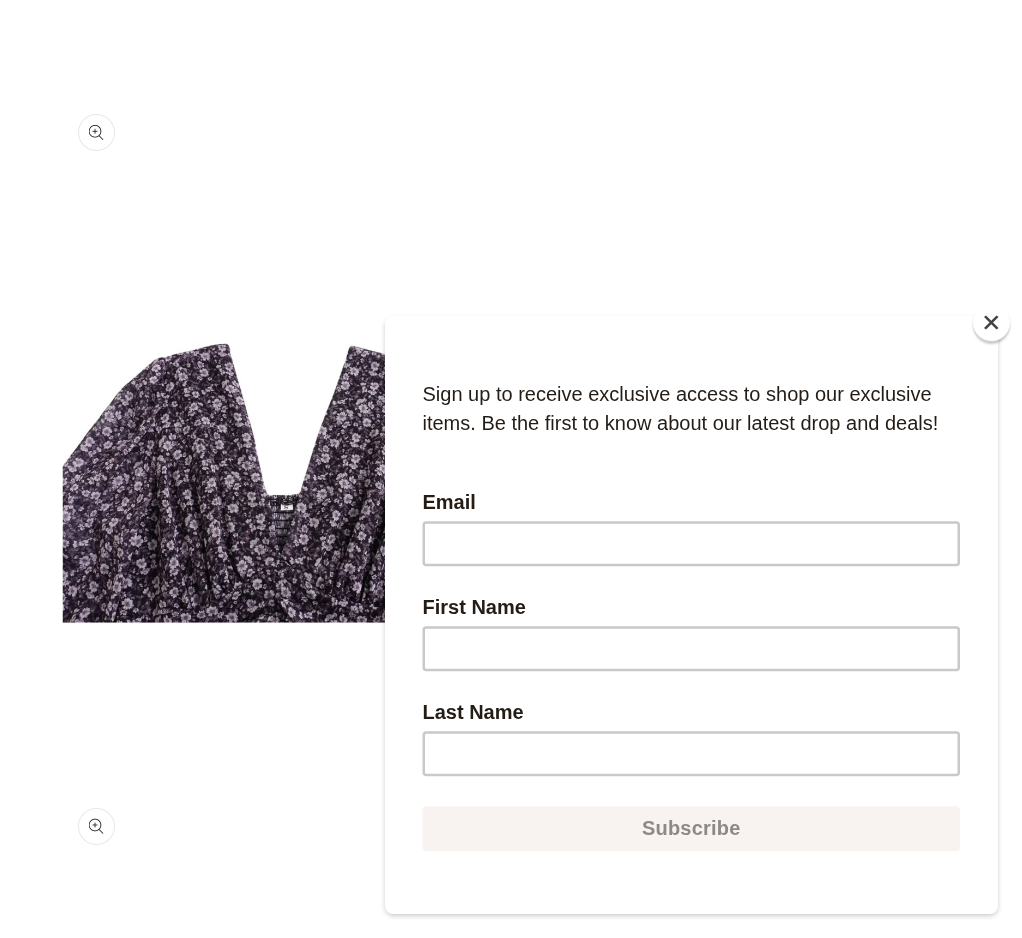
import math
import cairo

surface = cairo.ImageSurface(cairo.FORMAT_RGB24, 1022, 938)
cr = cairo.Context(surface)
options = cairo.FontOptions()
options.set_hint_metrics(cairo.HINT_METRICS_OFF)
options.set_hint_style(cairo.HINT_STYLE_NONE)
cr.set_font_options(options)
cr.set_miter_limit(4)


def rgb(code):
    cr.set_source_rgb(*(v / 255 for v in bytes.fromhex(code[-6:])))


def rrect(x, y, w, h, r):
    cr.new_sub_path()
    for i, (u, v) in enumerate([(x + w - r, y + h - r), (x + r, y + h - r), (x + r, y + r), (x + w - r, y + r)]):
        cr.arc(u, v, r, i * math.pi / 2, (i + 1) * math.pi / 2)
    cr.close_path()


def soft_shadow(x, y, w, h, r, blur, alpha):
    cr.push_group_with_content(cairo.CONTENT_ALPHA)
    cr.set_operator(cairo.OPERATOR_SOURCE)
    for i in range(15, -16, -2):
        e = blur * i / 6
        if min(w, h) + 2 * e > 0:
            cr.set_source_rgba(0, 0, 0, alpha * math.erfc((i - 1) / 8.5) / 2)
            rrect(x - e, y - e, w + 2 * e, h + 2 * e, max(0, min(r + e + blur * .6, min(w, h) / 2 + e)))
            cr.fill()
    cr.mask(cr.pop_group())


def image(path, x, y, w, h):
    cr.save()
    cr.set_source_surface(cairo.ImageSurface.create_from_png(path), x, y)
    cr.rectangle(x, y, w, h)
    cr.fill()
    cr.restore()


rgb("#ffffff")
cr.paint()
cr.arc(96.5, 132.5, 18, 0, 2 * math.pi)
rgb("#e7e7e7")
cr.set_line_width(1)
cr.stroke()
image("img/1.png", 89, 125, 15, 15)
image("img/2.png", 62, 343, 323, 282)
cr.arc(96.5, 826.5, 18, 0, 2 * math.pi)
cr.stroke()
image("img/3.png", 89, 818, 15, 16)
rgb("#000000")
soft_shadow(385, 319, 613, 597, 8, 2.5, 0.2)
rgb("#ffffff")
rrect(385, 316, 613, 598, 8)
cr.fill()
rgb("#000000")
soft_shadow(973, 306, 37, 38, 18.5, 1, 0.2)
rgb("#ffffff")
cr.arc(991.5, 322.5, 18.5, 0, 2 * math.pi)
cr.fill()
rgb("#414141")
cr.new_path()
cr.move_to(996.5, 315.5)
cr.line_to(998.5, 317)
cr.line_to(986, 329.5)
cr.line_to(984, 328)
cr.close_path()
cr.fill()
cr.new_path()
cr.move_to(984, 317)
cr.line_to(986, 315.5)
cr.line_to(998.5, 328)
cr.line_to(996.5, 329.5)
cr.close_path()
cr.fill()
image("img/4.png", 422, 386, 538, 465)
surface.write_to_png("page.png")
